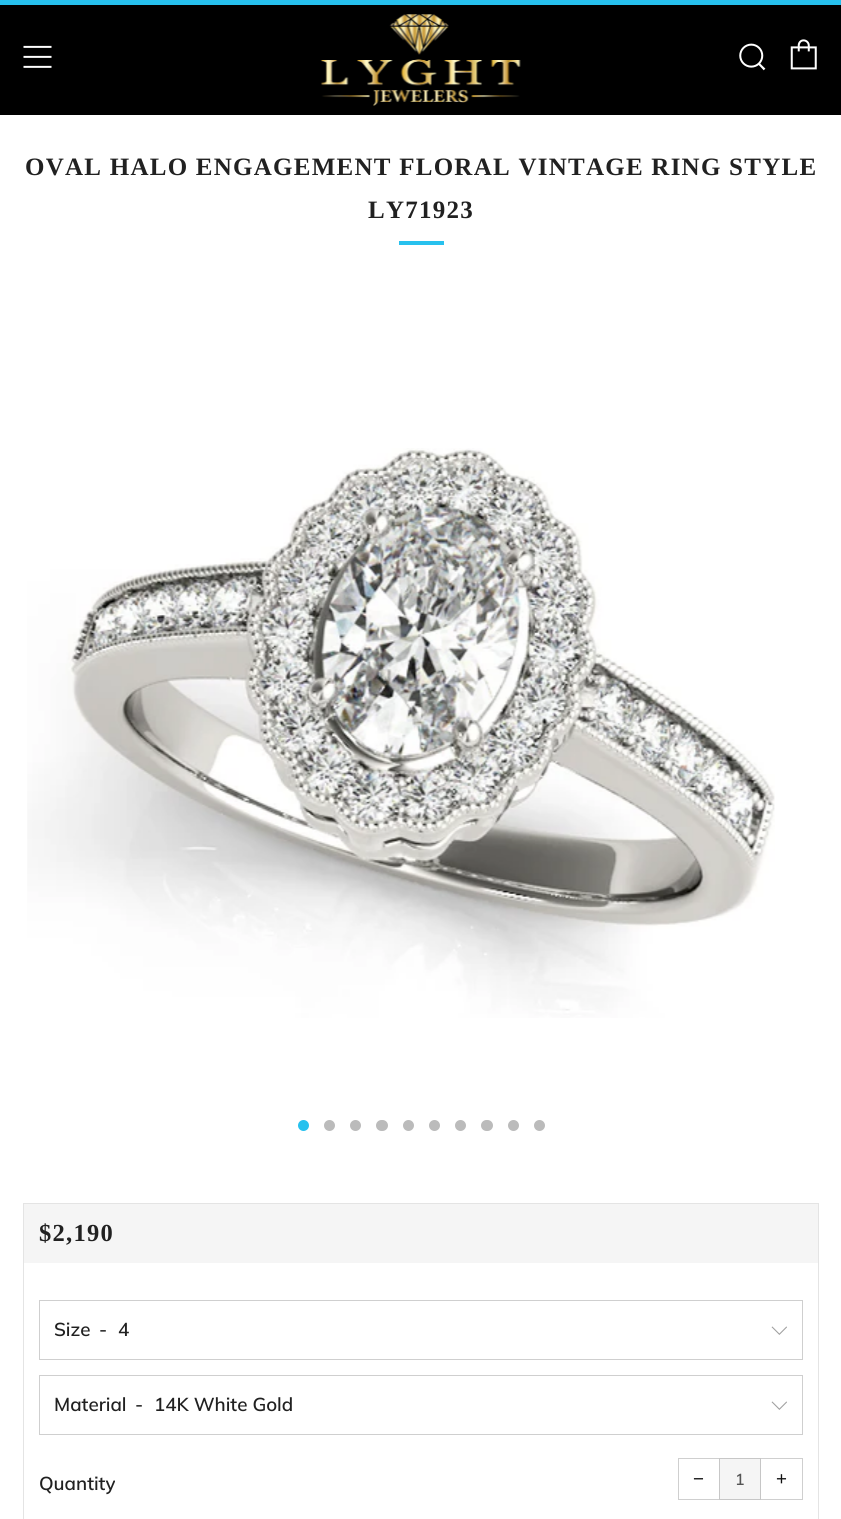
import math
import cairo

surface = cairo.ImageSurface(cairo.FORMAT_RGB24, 841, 1519)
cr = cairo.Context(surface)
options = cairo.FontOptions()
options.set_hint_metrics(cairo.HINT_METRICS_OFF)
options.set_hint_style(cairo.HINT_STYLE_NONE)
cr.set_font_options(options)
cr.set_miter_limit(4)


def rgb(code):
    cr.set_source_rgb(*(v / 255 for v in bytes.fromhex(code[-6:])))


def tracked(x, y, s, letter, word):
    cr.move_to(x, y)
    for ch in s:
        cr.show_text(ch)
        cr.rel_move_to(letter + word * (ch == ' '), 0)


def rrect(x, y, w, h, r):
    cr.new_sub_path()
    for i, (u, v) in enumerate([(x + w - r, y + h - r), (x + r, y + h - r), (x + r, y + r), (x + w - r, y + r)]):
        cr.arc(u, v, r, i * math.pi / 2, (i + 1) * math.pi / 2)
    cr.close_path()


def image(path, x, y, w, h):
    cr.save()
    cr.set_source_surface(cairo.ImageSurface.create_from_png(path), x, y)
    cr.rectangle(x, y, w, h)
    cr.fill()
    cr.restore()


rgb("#ffffff")
cr.paint()
rgb("#000000")
cr.rectangle(0, 5, 841, 110)
cr.fill()
rgb("#27c1ee")
cr.rectangle(0, 0, 841, 5)
cr.fill()
image("img/1.png", 23, 45, 29, 23)
image("img/2.png", 320, 14, 201, 92)
image("img/3.png", 739, 43, 27, 28)
image("img/4.png", 790, 39, 27, 31)
cr.rectangle(399, 241, 45, 4)
cr.fill()
image("img/5.png", 27, 448, 748, 570)
cr.arc(303.5, 1125.5, 5.5, 0, 2 * math.pi)
cr.fill()
rgb("#bbbbbb")
cr.arc(329.5, 1125.5, 5.5, 0, 2 * math.pi)
cr.fill()
cr.arc(355.5, 1125.5, 5.5, 0, 2 * math.pi)
cr.fill()
rrect(376, 1120, 12, 11, 5.5)
cr.fill()
cr.arc(408.5, 1125.5, 5.5, 0, 2 * math.pi)
cr.fill()
cr.arc(434.5, 1125.5, 5.5, 0, 2 * math.pi)
cr.fill()
cr.arc(460.5, 1125.5, 5.5, 0, 2 * math.pi)
cr.fill()
rrect(481, 1120, 12, 11, 5.5)
cr.fill()
cr.arc(513.5, 1125.5, 5.5, 0, 2 * math.pi)
cr.fill()
cr.arc(539.5, 1125.5, 5.5, 0, 2 * math.pi)
cr.fill()
cr.rectangle(23.5, 1203.5, 795, 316)
rgb("#e4e4e4")
cr.set_line_width(1)
cr.stroke()
rgb("#f5f5f5")
cr.rectangle(24, 1204, 794, 59)
cr.fill()
cr.rectangle(39.5, 1300.5, 763, 59)
rgb("#cfcfcf")
cr.stroke()
image("img/6.png", 771, 1326, 16, 9)
cr.rectangle(39.5, 1375.5, 763, 59)
cr.stroke()
image("img/6.png", 771, 1401, 16, 9)
cr.rectangle(678.5, 1458.5, 41, 41)
cr.stroke()
rgb("#f5f5f5")
cr.rectangle(719.5, 1458.5, 41, 41)
cr.fill_preserve()
rgb("#c7c7c7")
cr.stroke()
cr.set_source_rgba(1, 1, 1, 0.8)
cr.rectangle(760, 1458, 1, 42)
cr.fill()
cr.rectangle(760.5, 1458.5, 42, 41)
cr.set_source_rgba(0.067, 0.067, 0.067, 0.2)
cr.stroke()
cr.select_font_face("Liberation Serif", cairo.FONT_SLANT_NORMAL, cairo.FONT_WEIGHT_BOLD)
cr.set_font_size(25)
rgb("#212121")
tracked(25, 175, "OVAL HALO ENGAGEMENT FLORAL VINTAGE RING STYLE", 1.25, 0)
tracked(368, 218, "LY71923", 1.25, 0)
cr.set_font_size(24.5)
tracked(39, 1241, "$2,190", 1.25, 0)
cr.select_font_face("Muli SemiBold")
cr.set_font_size(18.75)
for x, y, s in [
    (54, 1336, "Size"),
    (99, 1336, "-"),
    (118, 1336, "4"),
    (54, 1411, "Material"),
    (135, 1411, "-"),
    (154, 1411, "14K White Gold"),
    (39, 1490, "Quantity"),
]:
    cr.move_to(x, y)
    cr.show_text(s)
cr.select_font_face("Liberation Sans")
rgb("#111111")
cr.move_to(693, 1485)
cr.show_text("−")
cr.select_font_face("Muli SemiBold")
cr.set_font_size(16)
rgb("#555555")
cr.move_to(735, 1485)
cr.show_text("1")
cr.select_font_face("Liberation Sans")
cr.set_font_size(18.75)
rgb("#111111")
cr.move_to(776, 1485)
cr.show_text("+")
surface.write_to_png("page.png")
